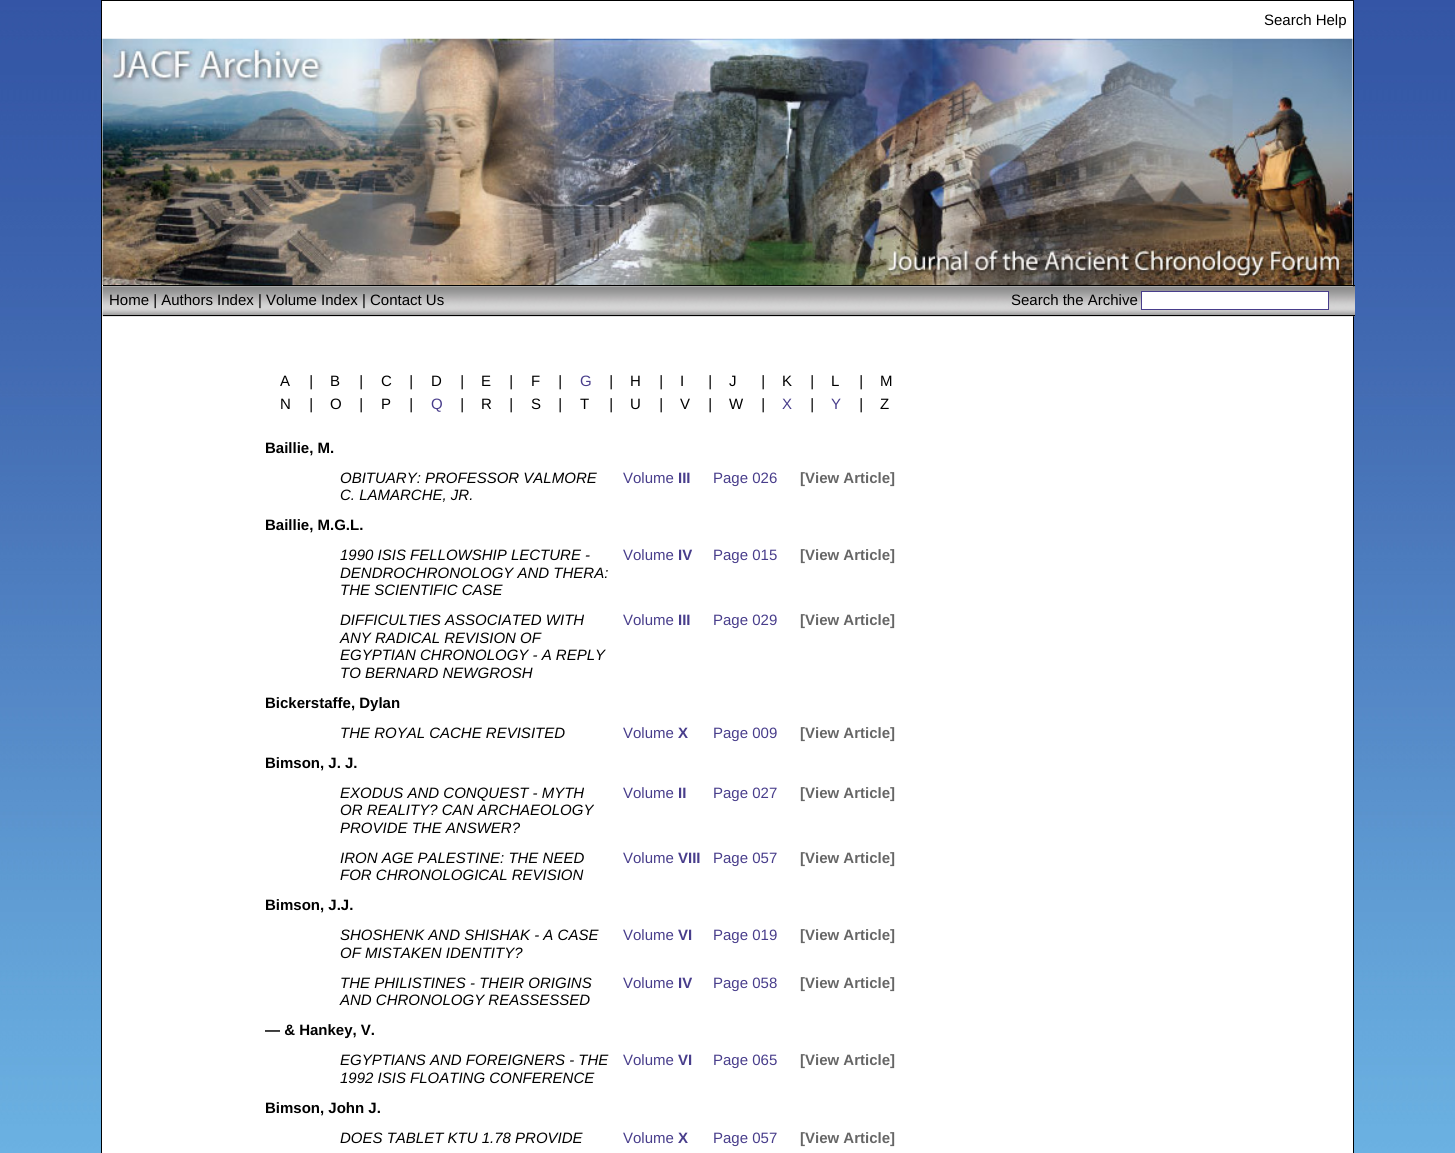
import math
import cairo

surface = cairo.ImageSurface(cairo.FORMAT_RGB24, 1455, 1153)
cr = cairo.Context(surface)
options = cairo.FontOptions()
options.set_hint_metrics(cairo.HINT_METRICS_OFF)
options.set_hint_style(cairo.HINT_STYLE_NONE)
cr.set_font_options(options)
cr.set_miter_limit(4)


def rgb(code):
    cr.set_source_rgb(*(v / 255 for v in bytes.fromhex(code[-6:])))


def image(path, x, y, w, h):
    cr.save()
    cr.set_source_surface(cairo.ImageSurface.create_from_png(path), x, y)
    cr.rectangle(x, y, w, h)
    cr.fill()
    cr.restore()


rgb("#ffffff")
cr.paint()
image("img/1.png", 0, 0, 1455, 1153)
rgb("#ffffff")
cr.rectangle(101.5, 0.5, 1252, 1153)
cr.fill_preserve()
rgb("#000000")
cr.set_line_width(1)
cr.stroke()
image("img/2.png", 102, 38, 1251, 247)
image("img/3.png", 102, 286, 1253, 31)
cr.rectangle(103, 285, 1252, 1)
cr.fill()
cr.rectangle(103, 315, 1252, 1)
cr.fill()
rgb("#ffffff")
cr.rectangle(1141.5, 291.5, 187, 18)
cr.fill_preserve()
rgb("#483d8b")
cr.stroke()
cr.select_font_face("Liberation Sans")
cr.set_font_size(15)
rgb("#000000")
for x, y, s in [
    (1264, 25, "Search Help"),
    (109, 305, "Home | Authors Index | Volume Index | Contact Us"),
    (1011, 305, "Search the Archive"),
    (280, 386, "A"),
]:
    cr.move_to(x, y)
    cr.show_text(s)
cr.select_font_face("Liberation Sans", cairo.FONT_SLANT_ITALIC)
cr.move_to(309, 386)
cr.show_text("|")
cr.select_font_face("Liberation Sans")
cr.move_to(330, 386)
cr.show_text("B")
cr.select_font_face("Liberation Sans", cairo.FONT_SLANT_ITALIC)
cr.move_to(359, 386)
cr.show_text("|")
cr.select_font_face("Liberation Sans")
cr.move_to(381, 386)
cr.show_text("C")
cr.select_font_face("Liberation Sans", cairo.FONT_SLANT_ITALIC)
cr.move_to(409, 386)
cr.show_text("|")
cr.select_font_face("Liberation Sans")
cr.move_to(431, 386)
cr.show_text("D")
cr.select_font_face("Liberation Sans", cairo.FONT_SLANT_ITALIC)
cr.move_to(460, 386)
cr.show_text("|")
cr.select_font_face("Liberation Sans")
cr.move_to(481, 386)
cr.show_text("E")
cr.select_font_face("Liberation Sans", cairo.FONT_SLANT_ITALIC)
cr.move_to(509, 386)
cr.show_text("|")
cr.select_font_face("Liberation Sans")
cr.move_to(531, 386)
cr.show_text("F")
cr.select_font_face("Liberation Sans", cairo.FONT_SLANT_ITALIC)
cr.move_to(558, 386)
cr.show_text("|")
cr.select_font_face("Liberation Sans")
rgb("#483d8b")
cr.move_to(580, 386)
cr.show_text("G")
cr.select_font_face("Liberation Sans", cairo.FONT_SLANT_ITALIC)
rgb("#000000")
cr.move_to(609, 386)
cr.show_text("|")
cr.select_font_face("Liberation Sans")
cr.move_to(630, 386)
cr.show_text("H")
cr.select_font_face("Liberation Sans", cairo.FONT_SLANT_ITALIC)
cr.move_to(659, 386)
cr.show_text("|")
cr.select_font_face("Liberation Sans")
cr.move_to(680, 386)
cr.show_text("I")
cr.select_font_face("Liberation Sans", cairo.FONT_SLANT_ITALIC)
cr.move_to(708, 386)
cr.show_text("|")
cr.select_font_face("Liberation Sans")
cr.move_to(729, 386)
cr.show_text("J")
cr.select_font_face("Liberation Sans", cairo.FONT_SLANT_ITALIC)
cr.move_to(761, 386)
cr.show_text("|")
cr.select_font_face("Liberation Sans")
cr.move_to(782, 386)
cr.show_text("K")
cr.select_font_face("Liberation Sans", cairo.FONT_SLANT_ITALIC)
cr.move_to(810, 386)
cr.show_text("|")
cr.select_font_face("Liberation Sans")
cr.move_to(831, 386)
cr.show_text("L")
cr.select_font_face("Liberation Sans", cairo.FONT_SLANT_ITALIC)
cr.move_to(859, 386)
cr.show_text("|")
cr.select_font_face("Liberation Sans")
cr.move_to(880, 386)
cr.show_text("M")
cr.move_to(280, 409)
cr.show_text("N")
cr.select_font_face("Liberation Sans", cairo.FONT_SLANT_ITALIC)
cr.move_to(309, 409)
cr.show_text("|")
cr.select_font_face("Liberation Sans")
cr.move_to(330, 409)
cr.show_text("O")
cr.select_font_face("Liberation Sans", cairo.FONT_SLANT_ITALIC)
cr.move_to(359, 409)
cr.show_text("|")
cr.select_font_face("Liberation Sans")
cr.move_to(381, 409)
cr.show_text("P")
cr.select_font_face("Liberation Sans", cairo.FONT_SLANT_ITALIC)
cr.move_to(409, 409)
cr.show_text("|")
cr.select_font_face("Liberation Sans")
rgb("#483d8b")
cr.move_to(431, 409)
cr.show_text("Q")
cr.select_font_face("Liberation Sans", cairo.FONT_SLANT_ITALIC)
rgb("#000000")
cr.move_to(460, 409)
cr.show_text("|")
cr.select_font_face("Liberation Sans")
cr.move_to(481, 409)
cr.show_text("R")
cr.select_font_face("Liberation Sans", cairo.FONT_SLANT_ITALIC)
cr.move_to(509, 409)
cr.show_text("|")
cr.select_font_face("Liberation Sans")
cr.move_to(531, 409)
cr.show_text("S")
cr.select_font_face("Liberation Sans", cairo.FONT_SLANT_ITALIC)
cr.move_to(558, 409)
cr.show_text("|")
cr.select_font_face("Liberation Sans")
cr.move_to(580, 409)
cr.show_text("T")
cr.select_font_face("Liberation Sans", cairo.FONT_SLANT_ITALIC)
cr.move_to(609, 409)
cr.show_text("|")
cr.select_font_face("Liberation Sans")
cr.move_to(630, 409)
cr.show_text("U")
cr.select_font_face("Liberation Sans", cairo.FONT_SLANT_ITALIC)
cr.move_to(659, 409)
cr.show_text("|")
cr.select_font_face("Liberation Sans")
cr.move_to(680, 409)
cr.show_text("V")
cr.select_font_face("Liberation Sans", cairo.FONT_SLANT_ITALIC)
cr.move_to(708, 409)
cr.show_text("|")
cr.select_font_face("Liberation Sans")
cr.move_to(729, 409)
cr.show_text("W")
cr.select_font_face("Liberation Sans", cairo.FONT_SLANT_ITALIC)
cr.move_to(761, 409)
cr.show_text("|")
cr.select_font_face("Liberation Sans")
rgb("#483d8b")
cr.move_to(782, 409)
cr.show_text("X")
cr.select_font_face("Liberation Sans", cairo.FONT_SLANT_ITALIC)
rgb("#000000")
cr.move_to(810, 409)
cr.show_text("|")
cr.select_font_face("Liberation Sans")
rgb("#483d8b")
cr.move_to(831, 409)
cr.show_text("Y")
cr.select_font_face("Liberation Sans", cairo.FONT_SLANT_ITALIC)
rgb("#000000")
cr.move_to(859, 409)
cr.show_text("|")
cr.select_font_face("Liberation Sans")
cr.move_to(880, 409)
cr.show_text("Z")
cr.select_font_face("Liberation Sans", cairo.FONT_SLANT_NORMAL, cairo.FONT_WEIGHT_BOLD)
cr.move_to(265, 453)
cr.show_text("Baillie, M.")
cr.select_font_face("Liberation Sans", cairo.FONT_SLANT_ITALIC)
cr.move_to(340, 483)
cr.show_text("OBITUARY: PROFESSOR VALMORE")
cr.move_to(340, 500)
cr.show_text("C. LAMARCHE, JR.")
cr.select_font_face("Liberation Sans")
rgb("#483d8b")
cr.move_to(623, 483)
cr.show_text("Volume")
cr.select_font_face("Liberation Sans", cairo.FONT_SLANT_NORMAL, cairo.FONT_WEIGHT_BOLD)
cr.move_to(678, 483)
cr.show_text("III")
cr.select_font_face("Liberation Sans")
cr.move_to(713, 483)
cr.show_text("Page 026")
cr.select_font_face("Liberation Sans", cairo.FONT_SLANT_NORMAL, cairo.FONT_WEIGHT_BOLD)
rgb("#666666")
cr.move_to(800, 483)
cr.show_text("[View Article]")
rgb("#000000")
cr.move_to(265, 530)
cr.show_text("Baillie, M.G.L.")
cr.select_font_face("Liberation Sans", cairo.FONT_SLANT_ITALIC)
for x, y, s in [
    (340, 560, "1990 ISIS FELLOWSHIP LECTURE -"),
    (340, 578, "DENDROCHRONOLOGY AND THERA:"),
    (340, 595, "THE SCIENTIFIC CASE"),
]:
    cr.move_to(x, y)
    cr.show_text(s)
cr.select_font_face("Liberation Sans")
rgb("#483d8b")
cr.move_to(623, 560)
cr.show_text("Volume")
cr.select_font_face("Liberation Sans", cairo.FONT_SLANT_NORMAL, cairo.FONT_WEIGHT_BOLD)
cr.move_to(678, 560)
cr.show_text("IV")
cr.select_font_face("Liberation Sans")
cr.move_to(713, 560)
cr.show_text("Page 015")
cr.select_font_face("Liberation Sans", cairo.FONT_SLANT_NORMAL, cairo.FONT_WEIGHT_BOLD)
rgb("#666666")
cr.move_to(800, 560)
cr.show_text("[View Article]")
cr.select_font_face("Liberation Sans", cairo.FONT_SLANT_ITALIC)
rgb("#000000")
for x, y, s in [
    (340, 625, "DIFFICULTIES ASSOCIATED WITH"),
    (340, 643, "ANY RADICAL REVISION OF"),
    (340, 660, "EGYPTIAN CHRONOLOGY - A REPLY"),
    (340, 678, "TO BERNARD NEWGROSH"),
]:
    cr.move_to(x, y)
    cr.show_text(s)
cr.select_font_face("Liberation Sans")
rgb("#483d8b")
cr.move_to(623, 625)
cr.show_text("Volume")
cr.select_font_face("Liberation Sans", cairo.FONT_SLANT_NORMAL, cairo.FONT_WEIGHT_BOLD)
cr.move_to(678, 625)
cr.show_text("III")
cr.select_font_face("Liberation Sans")
cr.move_to(713, 625)
cr.show_text("Page 029")
cr.select_font_face("Liberation Sans", cairo.FONT_SLANT_NORMAL, cairo.FONT_WEIGHT_BOLD)
rgb("#666666")
cr.move_to(800, 625)
cr.show_text("[View Article]")
rgb("#000000")
cr.move_to(265, 708)
cr.show_text("Bickerstaffe, Dylan")
cr.select_font_face("Liberation Sans", cairo.FONT_SLANT_ITALIC)
cr.move_to(340, 738)
cr.show_text("THE ROYAL CACHE REVISITED")
cr.select_font_face("Liberation Sans")
rgb("#483d8b")
cr.move_to(623, 738)
cr.show_text("Volume")
cr.select_font_face("Liberation Sans", cairo.FONT_SLANT_NORMAL, cairo.FONT_WEIGHT_BOLD)
cr.move_to(678, 738)
cr.show_text("X")
cr.select_font_face("Liberation Sans")
cr.move_to(713, 738)
cr.show_text("Page 009")
cr.select_font_face("Liberation Sans", cairo.FONT_SLANT_NORMAL, cairo.FONT_WEIGHT_BOLD)
rgb("#666666")
cr.move_to(800, 738)
cr.show_text("[View Article]")
rgb("#000000")
cr.move_to(265, 768)
cr.show_text("Bimson, J. J.")
cr.select_font_face("Liberation Sans", cairo.FONT_SLANT_ITALIC)
for x, y, s in [
    (340, 798, "EXODUS AND CONQUEST - MYTH"),
    (340, 815, "OR REALITY? CAN ARCHAEOLOGY"),
    (340, 833, "PROVIDE THE ANSWER?"),
]:
    cr.move_to(x, y)
    cr.show_text(s)
cr.select_font_face("Liberation Sans")
rgb("#483d8b")
cr.move_to(623, 798)
cr.show_text("Volume")
cr.select_font_face("Liberation Sans", cairo.FONT_SLANT_NORMAL, cairo.FONT_WEIGHT_BOLD)
cr.move_to(678, 798)
cr.show_text("II")
cr.select_font_face("Liberation Sans")
cr.move_to(713, 798)
cr.show_text("Page 027")
cr.select_font_face("Liberation Sans", cairo.FONT_SLANT_NORMAL, cairo.FONT_WEIGHT_BOLD)
rgb("#666666")
cr.move_to(800, 798)
cr.show_text("[View Article]")
cr.select_font_face("Liberation Sans", cairo.FONT_SLANT_ITALIC)
rgb("#000000")
cr.move_to(340, 863)
cr.show_text("IRON AGE PALESTINE: THE NEED")
cr.move_to(340, 880)
cr.show_text("FOR CHRONOLOGICAL REVISION")
cr.select_font_face("Liberation Sans")
rgb("#483d8b")
cr.move_to(623, 863)
cr.show_text("Volume")
cr.select_font_face("Liberation Sans", cairo.FONT_SLANT_NORMAL, cairo.FONT_WEIGHT_BOLD)
cr.move_to(678, 863)
cr.show_text("VIII")
cr.select_font_face("Liberation Sans")
cr.move_to(713, 863)
cr.show_text("Page 057")
cr.select_font_face("Liberation Sans", cairo.FONT_SLANT_NORMAL, cairo.FONT_WEIGHT_BOLD)
rgb("#666666")
cr.move_to(800, 863)
cr.show_text("[View Article]")
rgb("#000000")
cr.move_to(265, 910)
cr.show_text("Bimson, J.J.")
cr.select_font_face("Liberation Sans", cairo.FONT_SLANT_ITALIC)
cr.move_to(340, 940)
cr.show_text("SHOSHENK AND SHISHAK - A CASE")
cr.move_to(340, 958)
cr.show_text("OF MISTAKEN IDENTITY?")
cr.select_font_face("Liberation Sans")
rgb("#483d8b")
cr.move_to(623, 940)
cr.show_text("Volume")
cr.select_font_face("Liberation Sans", cairo.FONT_SLANT_NORMAL, cairo.FONT_WEIGHT_BOLD)
cr.move_to(678, 940)
cr.show_text("VI")
cr.select_font_face("Liberation Sans")
cr.move_to(713, 940)
cr.show_text("Page 019")
cr.select_font_face("Liberation Sans", cairo.FONT_SLANT_NORMAL, cairo.FONT_WEIGHT_BOLD)
rgb("#666666")
cr.move_to(800, 940)
cr.show_text("[View Article]")
cr.select_font_face("Liberation Sans", cairo.FONT_SLANT_ITALIC)
rgb("#000000")
cr.move_to(340, 988)
cr.show_text("THE PHILISTINES - THEIR ORIGINS")
cr.move_to(340, 1005)
cr.show_text("AND CHRONOLOGY REASSESSED")
cr.select_font_face("Liberation Sans")
rgb("#483d8b")
cr.move_to(623, 988)
cr.show_text("Volume")
cr.select_font_face("Liberation Sans", cairo.FONT_SLANT_NORMAL, cairo.FONT_WEIGHT_BOLD)
cr.move_to(678, 988)
cr.show_text("IV")
cr.select_font_face("Liberation Sans")
cr.move_to(713, 988)
cr.show_text("Page 058")
cr.select_font_face("Liberation Sans", cairo.FONT_SLANT_NORMAL, cairo.FONT_WEIGHT_BOLD)
rgb("#666666")
cr.move_to(800, 988)
cr.show_text("[View Article]")
rgb("#000000")
cr.move_to(265, 1035)
cr.show_text("— & Hankey, V.")
cr.select_font_face("Liberation Sans", cairo.FONT_SLANT_ITALIC)
cr.move_to(340, 1065)
cr.show_text("EGYPTIANS AND FOREIGNERS - THE")
cr.move_to(340, 1083)
cr.show_text("1992 ISIS FLOATING CONFERENCE")
cr.select_font_face("Liberation Sans")
rgb("#483d8b")
cr.move_to(623, 1065)
cr.show_text("Volume")
cr.select_font_face("Liberation Sans", cairo.FONT_SLANT_NORMAL, cairo.FONT_WEIGHT_BOLD)
cr.move_to(678, 1065)
cr.show_text("VI")
cr.select_font_face("Liberation Sans")
cr.move_to(713, 1065)
cr.show_text("Page 065")
cr.select_font_face("Liberation Sans", cairo.FONT_SLANT_NORMAL, cairo.FONT_WEIGHT_BOLD)
rgb("#666666")
cr.move_to(800, 1065)
cr.show_text("[View Article]")
rgb("#000000")
cr.move_to(265, 1113)
cr.show_text("Bimson, John J.")
cr.select_font_face("Liberation Sans", cairo.FONT_SLANT_ITALIC)
cr.move_to(340, 1143)
cr.show_text("DOES TABLET KTU 1.78 PROVIDE")
cr.select_font_face("Liberation Sans")
rgb("#483d8b")
cr.move_to(623, 1143)
cr.show_text("Volume")
cr.select_font_face("Liberation Sans", cairo.FONT_SLANT_NORMAL, cairo.FONT_WEIGHT_BOLD)
cr.move_to(678, 1143)
cr.show_text("X")
cr.select_font_face("Liberation Sans")
cr.move_to(713, 1143)
cr.show_text("Page 057")
cr.select_font_face("Liberation Sans", cairo.FONT_SLANT_NORMAL, cairo.FONT_WEIGHT_BOLD)
rgb("#666666")
cr.move_to(800, 1143)
cr.show_text("[View Article]")
surface.write_to_png("page.png")
